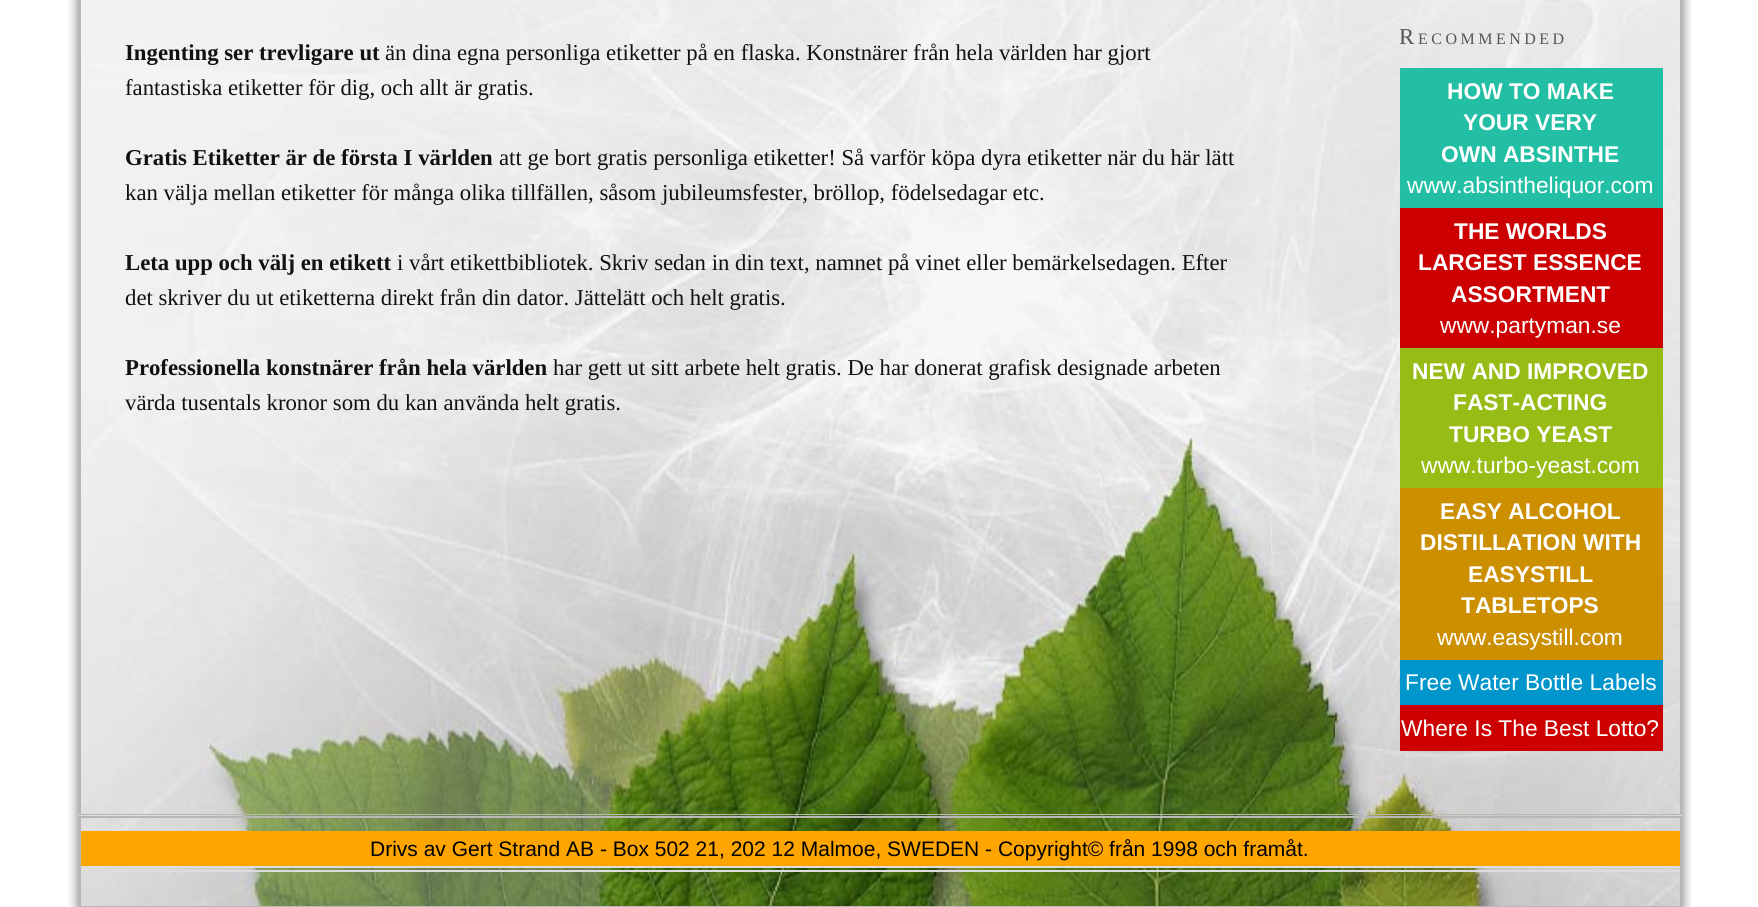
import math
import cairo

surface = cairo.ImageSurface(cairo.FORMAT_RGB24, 1758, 907)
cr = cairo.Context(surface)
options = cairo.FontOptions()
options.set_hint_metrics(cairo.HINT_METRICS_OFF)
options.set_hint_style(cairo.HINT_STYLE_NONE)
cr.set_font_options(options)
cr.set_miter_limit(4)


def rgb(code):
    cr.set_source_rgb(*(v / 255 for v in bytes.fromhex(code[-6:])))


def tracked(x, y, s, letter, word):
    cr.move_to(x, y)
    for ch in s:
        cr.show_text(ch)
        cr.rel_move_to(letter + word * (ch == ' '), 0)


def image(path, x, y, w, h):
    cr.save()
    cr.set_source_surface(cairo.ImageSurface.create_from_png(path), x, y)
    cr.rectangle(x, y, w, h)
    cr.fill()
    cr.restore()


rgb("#ffffff")
cr.paint()
image("img/1.png", 68, 0, 1624, 907)
image("img/2.png", 81, 0, 1599, 814)
cr.rectangle(80, -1, 1601, 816)
rgb("#b7b7b7")
cr.stroke()
for x, y, w, h, color in [
    (1400, 68, 263, 140, "#23bfa5"),
    (1400, 208, 263, 140, "#cc0000"),
    (1400, 348, 263, 140, "#97bc16"),
    (1400, 488, 263, 172, "#cc8f00"),
    (1400, 660, 263, 45, "#0096cc"),
    (1400, 705, 263, 46, "#cc0000"),
]:
    rgb(color)
    cr.rectangle(x, y, w, h)
    cr.fill()
image("img/3.png", 79, 815, 1603, 91)
cr.rectangle(80, 817, 1601, 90)
rgb("#b7b7b7")
cr.stroke()
for x, y, w, h, color in [
    (81, 831, 1599, 35, "#ffa500"),
    (116, 866, 1564, 2, "#dddddd"),
    (116, 870, 1564, 2, "#dddddd"),
]:
    rgb(color)
    cr.rectangle(x, y, w, h)
    cr.fill()
cr.select_font_face("Liberation Serif", cairo.FONT_SLANT_NORMAL, cairo.FONT_WEIGHT_BOLD)
cr.set_font_size(22.75)
rgb("#111111")
cr.move_to(125, 60)
cr.show_text("Ingenting ser trevligare ut")
cr.select_font_face("Liberation Serif")
cr.move_to(385, 60)
cr.show_text("än dina egna personliga etiketter på en flaska. Konstnärer från hela världen har gjort")
cr.move_to(125, 95)
cr.show_text("fantastiska etiketter för dig, och allt är gratis.")
cr.select_font_face("Liberation Serif", cairo.FONT_SLANT_NORMAL, cairo.FONT_WEIGHT_BOLD)
cr.move_to(125, 165)
cr.show_text("Gratis Etiketter är de första I världen")
cr.select_font_face("Liberation Serif")
cr.move_to(499, 165)
cr.show_text("att ge bort gratis personliga etiketter! Så varför köpa dyra etiketter när du här lätt")
cr.move_to(125, 200)
cr.show_text("kan välja mellan etiketter för många olika tillfällen, såsom jubileumsfester, bröllop, födelsedagar etc.")
cr.select_font_face("Liberation Serif", cairo.FONT_SLANT_NORMAL, cairo.FONT_WEIGHT_BOLD)
cr.move_to(125, 270)
cr.show_text("Leta upp och välj en etikett")
cr.select_font_face("Liberation Serif")
cr.move_to(397, 270)
cr.show_text("i vårt etikettbibliotek. Skriv sedan in din text, namnet på vinet eller bemärkelsedagen. Efter")
cr.move_to(125, 305)
cr.show_text("det skriver du ut etiketterna direkt från din dator. Jättelätt och helt gratis.")
cr.select_font_face("Liberation Serif", cairo.FONT_SLANT_NORMAL, cairo.FONT_WEIGHT_BOLD)
cr.move_to(125, 375)
cr.show_text("Professionella konstnärer från hela världen")
cr.select_font_face("Liberation Serif")
cr.move_to(553, 375)
cr.show_text("har gett ut sitt arbete helt gratis. De har donerat grafisk designade arbeten")
cr.move_to(125, 410)
cr.show_text("värda tusentals kronor som du kan använda helt gratis.")
rgb("#555555")
tracked(1399, 44, "R", 3.5, 0)
cr.set_font_size(16)
tracked(1418, 44, "ECOMMENDED", 3.5, 0)
cr.select_font_face("Liberation Sans", cairo.FONT_SLANT_NORMAL, cairo.FONT_WEIGHT_BOLD)
cr.set_font_size(22.75)
rgb("#ffffff")
for x, y, s in [
    (1447, 99, "HOW TO MAKE"),
    (1463, 130, "YOUR VERY"),
    (1441, 162, "OWN ABSINTHE"),
]:
    cr.move_to(x, y)
    cr.show_text(s)
cr.select_font_face("Liberation Sans")
cr.move_to(1407, 193)
cr.show_text("www.absintheliquor.com")
cr.select_font_face("Liberation Sans", cairo.FONT_SLANT_NORMAL, cairo.FONT_WEIGHT_BOLD)
for x, y, s in [
    (1454, 239, "THE WORLDS"),
    (1418, 270, "LARGEST ESSENCE"),
    (1451, 302, "ASSORTMENT"),
]:
    cr.move_to(x, y)
    cr.show_text(s)
cr.select_font_face("Liberation Sans")
cr.move_to(1440, 333)
cr.show_text("www.partyman.se")
cr.select_font_face("Liberation Sans", cairo.FONT_SLANT_NORMAL, cairo.FONT_WEIGHT_BOLD)
for x, y, s in [
    (1412, 379, "NEW AND IMPROVED"),
    (1453, 410, "FAST-ACTING"),
    (1449, 442, "TURBO YEAST"),
]:
    cr.move_to(x, y)
    cr.show_text(s)
cr.select_font_face("Liberation Sans")
cr.move_to(1421, 473)
cr.show_text("www.turbo-yeast.com")
cr.select_font_face("Liberation Sans", cairo.FONT_SLANT_NORMAL, cairo.FONT_WEIGHT_BOLD)
for x, y, s in [
    (1440, 519, "EASY ALCOHOL"),
    (1420, 550, "DISTILLATION WITH"),
    (1468, 582, "EASYSTILL"),
    (1461, 613, "TABLETOPS"),
]:
    cr.move_to(x, y)
    cr.show_text(s)
cr.select_font_face("Liberation Sans")
for x, y, s in [
    (1437, 645, "www.easystill.com"),
    (1405, 690, "Free Water Bottle Labels"),
    (1401, 736, "Where Is The Best Lotto?"),
]:
    cr.move_to(x, y)
    cr.show_text(s)
cr.set_font_size(21)
rgb("#000000")
cr.move_to(370, 856)
cr.show_text("Drivs av Gert Strand AB - Box 502 21, 202 12 Malmoe, SWEDEN - Copyright© från 1998 och framåt.")
surface.write_to_png("page.png")
